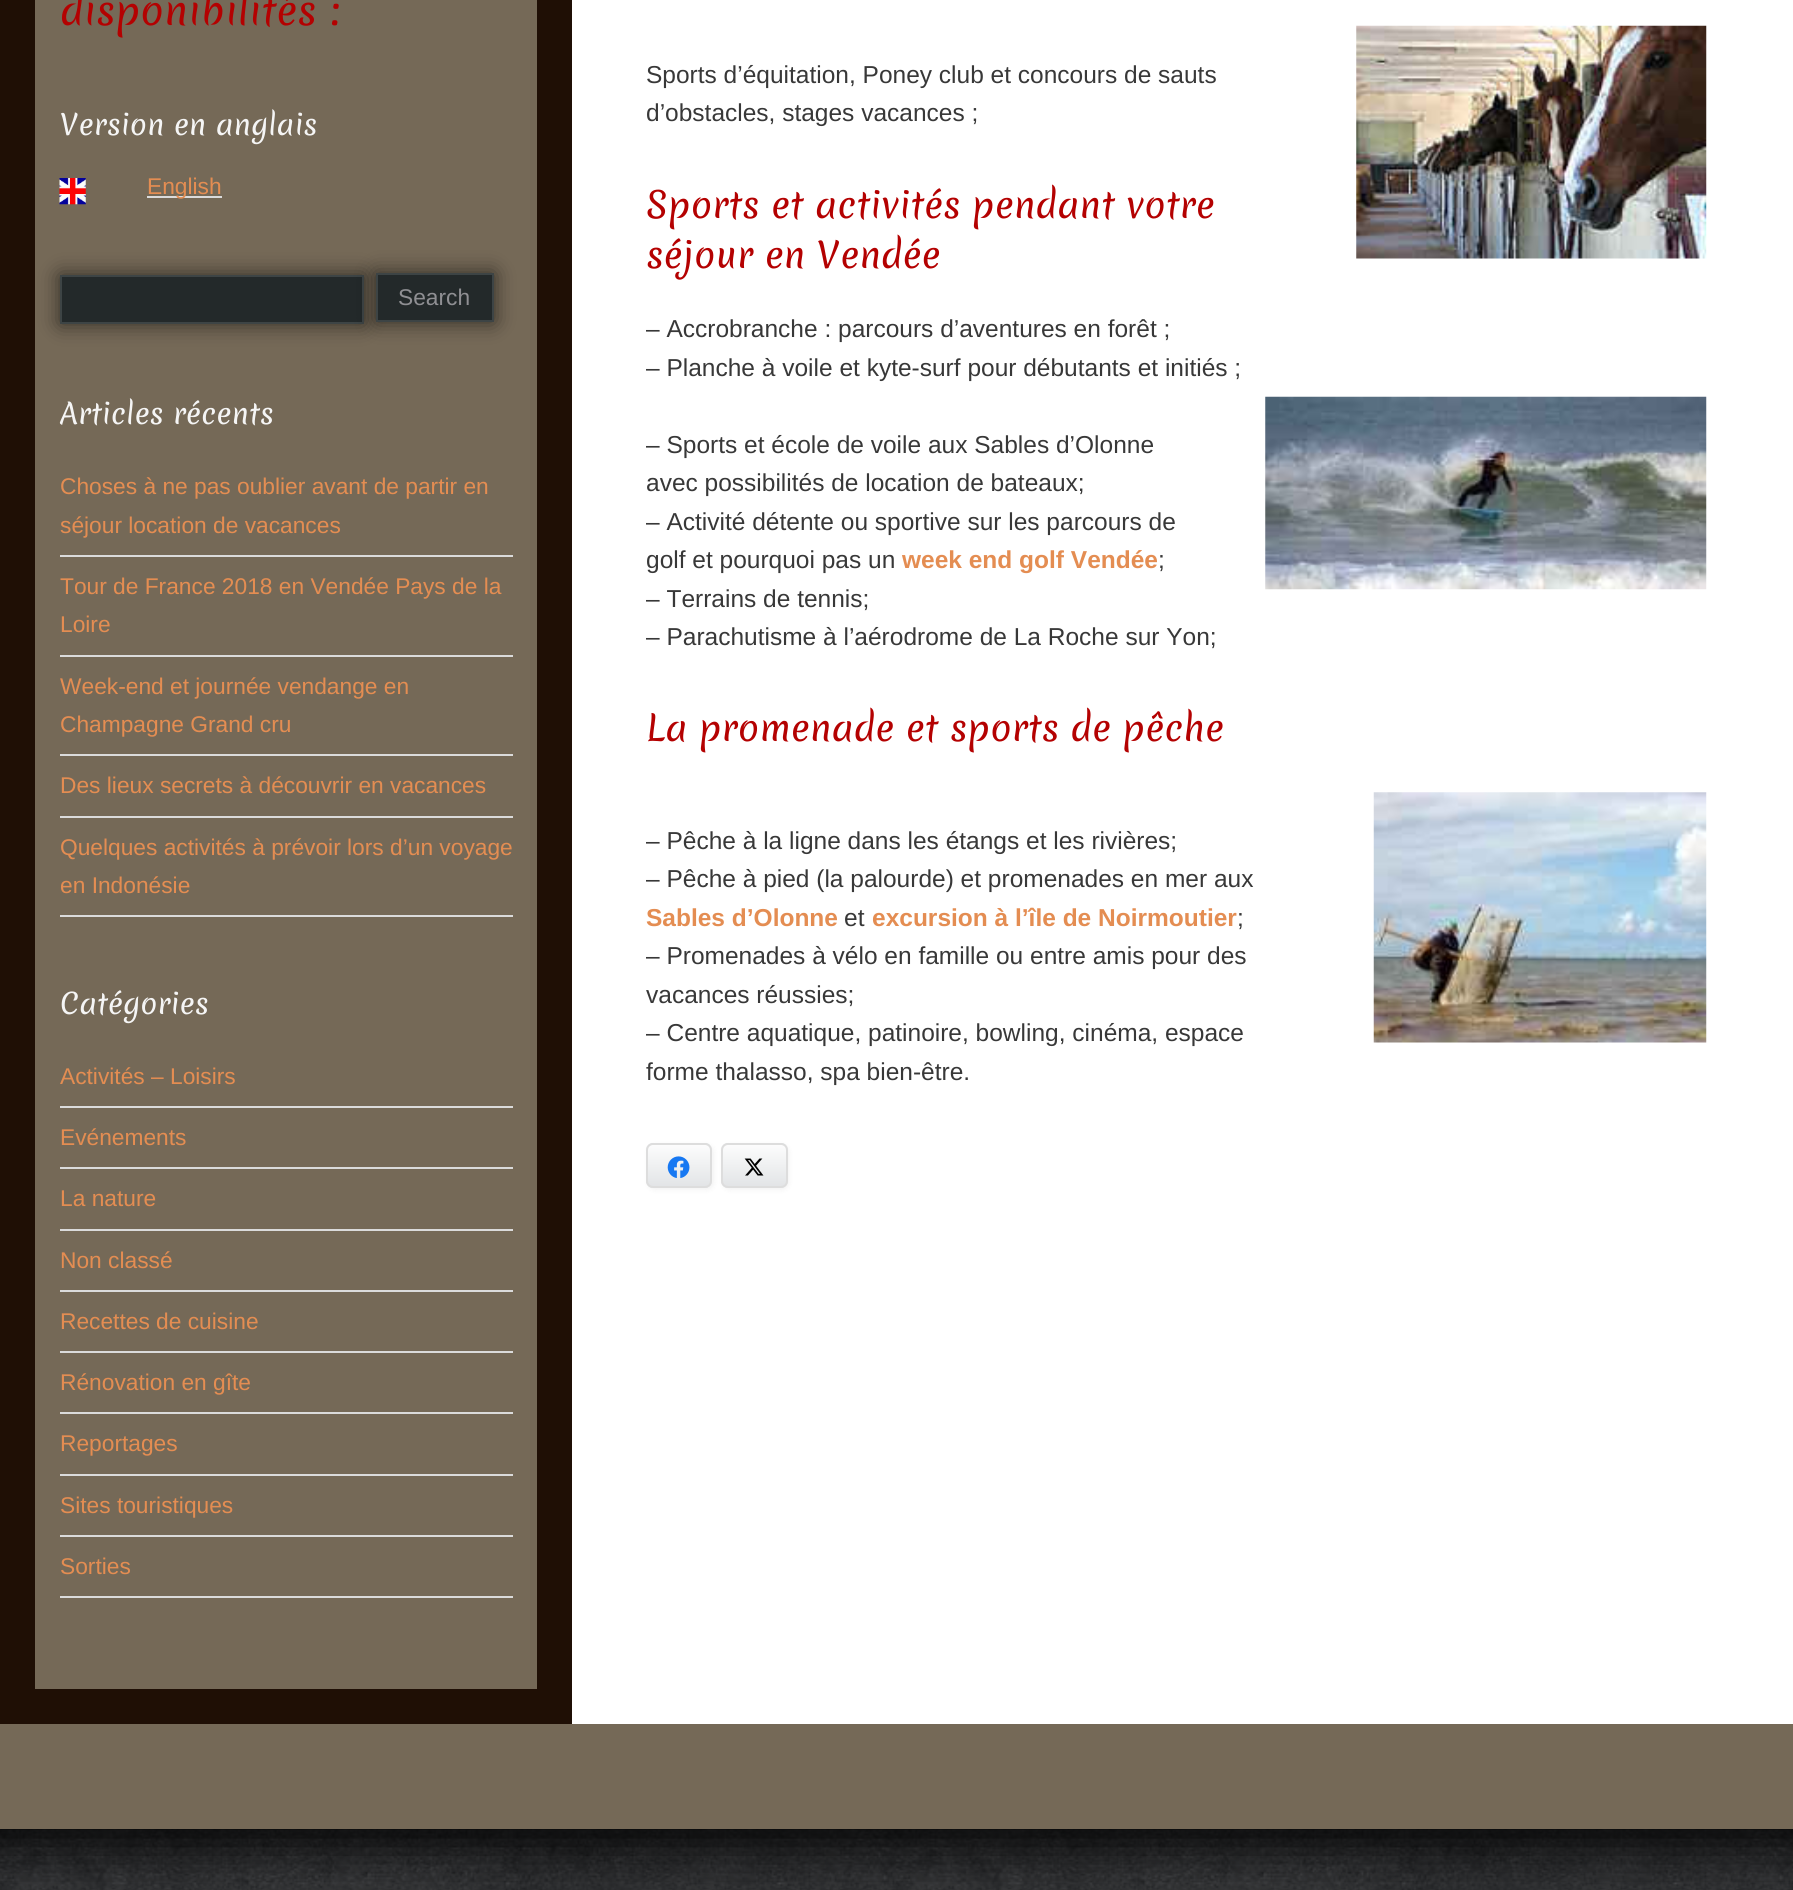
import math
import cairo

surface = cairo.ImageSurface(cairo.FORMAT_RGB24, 1793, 1890)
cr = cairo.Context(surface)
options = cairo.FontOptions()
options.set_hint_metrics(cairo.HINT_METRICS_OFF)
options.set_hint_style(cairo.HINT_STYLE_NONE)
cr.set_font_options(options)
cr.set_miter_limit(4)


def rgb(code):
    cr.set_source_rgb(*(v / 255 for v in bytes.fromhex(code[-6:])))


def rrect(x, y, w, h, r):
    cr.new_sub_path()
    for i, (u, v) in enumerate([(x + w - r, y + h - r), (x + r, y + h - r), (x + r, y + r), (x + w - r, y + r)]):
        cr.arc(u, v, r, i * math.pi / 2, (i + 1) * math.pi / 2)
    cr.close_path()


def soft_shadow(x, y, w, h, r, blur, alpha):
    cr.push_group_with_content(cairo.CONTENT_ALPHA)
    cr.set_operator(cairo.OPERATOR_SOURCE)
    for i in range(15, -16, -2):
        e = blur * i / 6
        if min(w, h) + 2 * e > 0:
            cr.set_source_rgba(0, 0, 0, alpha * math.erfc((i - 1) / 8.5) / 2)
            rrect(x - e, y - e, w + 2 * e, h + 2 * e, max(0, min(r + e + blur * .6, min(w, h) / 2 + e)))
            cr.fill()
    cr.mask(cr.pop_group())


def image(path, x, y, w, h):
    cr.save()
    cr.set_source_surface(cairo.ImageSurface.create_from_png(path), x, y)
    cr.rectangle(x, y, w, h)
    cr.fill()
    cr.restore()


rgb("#ffffff")
cr.paint()
image("img/1.png", 0, 1829, 1793, 61)
rgb("#000000")
soft_shadow(-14, -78, 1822, 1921, 0, 26, 1)
for x, y, w, h, color in [
    (572, 0, 1221, 1724, "#ffffff"),
    (0, 0, 572, 1724, "#1f0f05"),
    (35, 0, 502, 1689, "#756957"),
]:
    rgb(color)
    cr.rectangle(x, y, w, h)
    cr.fill()
image("img/2.png", 59, 178, 27, 27)
rgb("#dbdbdb")
cr.rectangle(147, 196, 75, 2)
cr.fill()
rgb("#000000")
soft_shadow(60, 275, 304, 49, 0, 10.5, 0.6)
rgb("#23292a")
cr.rectangle(61, 276, 302, 47)
cr.fill_preserve()
rgb("#3d4445")
cr.stroke()
rgb("#000000")
soft_shadow(376, 273, 118, 49, 0, 10.5, 0.6)
rgb("#23292a")
cr.rectangle(377, 274, 116, 47)
cr.fill_preserve()
rgb("#3d4445")
cr.stroke()
for x, y, w, h, color in [
    (60, 555, 453, 2, "#dbdbdb"),
    (60, 655, 453, 2, "#dbdbdb"),
    (60, 754, 453, 2, "#dbdbdb"),
    (60, 816, 453, 2, "#dbdbdb"),
    (60, 915, 453, 2, "#dbdbdb"),
    (60, 1106, 453, 2, "#dbdbdb"),
    (60, 1167, 453, 2, "#dbdbdb"),
    (60, 1229, 453, 2, "#dbdbdb"),
    (60, 1290, 453, 2, "#dbdbdb"),
    (60, 1351, 453, 2, "#dbdbdb"),
    (60, 1412, 453, 2, "#dbdbdb"),
    (60, 1474, 453, 2, "#dbdbdb"),
    (60, 1535, 453, 2, "#dbdbdb"),
    (60, 1596, 453, 2, "#dbdbdb"),
]:
    rgb(color)
    cr.rectangle(x, y, w, h)
    cr.fill()
image("img/3.png", 1356, 25, 351, 234)
image("img/4.png", 1265, 396, 442, 194)
image("img/5.png", 1373, 792, 334, 251)
rgb("#000000")
soft_shadow(648, 1145, 66, 45, 7, 2.5, 0.05)
rgb("#e2e4e6")
rrect(646, 1143, 66, 45, 7)
cr.fill()
cr.save()
rrect(646, 1143, 66, 45, 7)
cr.clip()
gradient = cairo.LinearGradient(679, 1145, 679, 1187)
gradient.add_color_stop_rgba(0, 1, 1, 1, 0.9)
gradient.add_color_stop_rgba(1, 1, 1, 1, 0)
cr.set_source(gradient)
cr.rectangle(646, 1145, 66, 41)
cr.fill()
cr.restore()
rrect(647, 1144, 64, 43, 6)
rgb("#dddddd")
cr.stroke()
image("img/6.png", 667, 1156, 23, 22)
rgb("#000000")
soft_shadow(723, 1145, 66, 45, 7, 2.5, 0.05)
rgb("#e2e4e6")
rrect(721, 1143, 67, 45, 7)
cr.fill()
cr.save()
rrect(721, 1143, 67, 45, 7)
cr.clip()
gradient = cairo.LinearGradient(754, 1145, 754, 1187)
gradient.add_color_stop_rgba(0, 1, 1, 1, 0.9)
gradient.add_color_stop_rgba(1, 1, 1, 1, 0)
cr.set_source(gradient)
cr.rectangle(721, 1145, 67, 41)
cr.fill()
cr.restore()
rrect(722, 1144, 65, 43, 6)
rgb("#dddddd")
cr.stroke()
image("img/7.png", 744, 1158, 20, 18)
rgb("#756957")
cr.rectangle(0, 1724, 1793, 105)
cr.fill()
cr.select_font_face("Merienda")
cr.set_font_size(38.5)
rgb("#b40101")
cr.move_to(60, 25)
cr.show_text("disponibilités :")
cr.set_font_size(28)
rgb("#f5f5f5")
cr.move_to(60, 135)
cr.show_text("Version en anglais")
cr.select_font_face("Liberation Sans")
cr.set_font_size(22.75)
rgb("#e48d52")
cr.move_to(147, 194)
cr.show_text("English")
rgb("#8f8f93")
cr.move_to(398, 305)
cr.show_text("Search")
cr.select_font_face("Merienda")
cr.set_font_size(28)
rgb("#f5f5f5")
cr.move_to(60, 424)
cr.show_text("Articles récents")
cr.select_font_face("Liberation Sans")
cr.set_font_size(22.75)
rgb("#e48d52")
for x, y, s in [
    (60, 494, "Choses à ne pas oublier avant de partir en"),
    (60, 533, "séjour location de vacances"),
    (60, 594, "Tour de France 2018 en Vendée Pays de la"),
    (60, 632, "Loire"),
    (60, 694, "Week-end et journée vendange en"),
    (60, 732, "Champagne Grand cru"),
    (60, 793, "Des lieux secrets à découvrir en vacances"),
    (60, 855, "Quelques activités à prévoir lors d’un voyage"),
    (60, 893, "en Indonésie"),
]:
    cr.move_to(x, y)
    cr.show_text(s)
cr.select_font_face("Merienda")
cr.set_font_size(28)
rgb("#f5f5f5")
cr.move_to(60, 1014)
cr.show_text("Catégories")
cr.select_font_face("Liberation Sans")
cr.set_font_size(22.75)
rgb("#e48d52")
for x, y, s in [
    (60, 1084, "Activités – Loisirs"),
    (60, 1145, "Evénements"),
    (60, 1206, "La nature"),
    (60, 1268, "Non classé"),
    (60, 1329, "Recettes de cuisine"),
    (60, 1390, "Rénovation en gîte"),
    (60, 1451, "Reportages"),
    (60, 1513, "Sites touristiques"),
    (60, 1574, "Sorties"),
]:
    cr.move_to(x, y)
    cr.show_text(s)
cr.set_font_size(24.5)
rgb("#383838")
cr.move_to(646, 83)
cr.show_text("Sports d’équitation, Poney club et concours de sauts")
cr.move_to(646, 121)
cr.show_text("d’obstacles, stages vacances ;")
cr.select_font_face("Merienda")
cr.set_font_size(35)
rgb("#b40101")
cr.move_to(646, 218)
cr.show_text("Sports et activités pendant votre")
cr.move_to(646, 268)
cr.show_text("séjour en Vendée")
cr.select_font_face("Liberation Sans")
cr.set_font_size(24.5)
rgb("#383838")
for x, y, s in [
    (646, 337, "– Accrobranche : parcours d’aventures en forêt ;"),
    (646, 376, "– Planche à voile et kyte-surf pour débutants et initiés ;"),
    (646, 453, "– Sports et école de voile aux Sables d’Olonne"),
    (646, 491, "avec possibilités de location de bateaux;"),
    (646, 530, "– Activité détente ou sportive sur les parcours de"),
    (646, 568, "golf et pourquoi pas un"),
]:
    cr.move_to(x, y)
    cr.show_text(s)
cr.select_font_face("Liberation Sans", cairo.FONT_SLANT_NORMAL, cairo.FONT_WEIGHT_BOLD)
rgb("#e48d52")
cr.move_to(902, 568)
cr.show_text("week end golf Vendée")
cr.select_font_face("Liberation Sans")
rgb("#383838")
for x, y, s in [
    (1158, 568, ";"),
    (646, 607, "– Terrains de tennis;"),
    (646, 645, "– Parachutisme à l’aérodrome de La Roche sur Yon;"),
]:
    cr.move_to(x, y)
    cr.show_text(s)
cr.select_font_face("Merienda")
cr.set_font_size(35)
rgb("#b40101")
cr.move_to(646, 741)
cr.show_text("La promenade et sports de pêche")
cr.select_font_face("Liberation Sans")
cr.set_font_size(24.5)
rgb("#383838")
cr.move_to(646, 849)
cr.show_text("– Pêche à la ligne dans les étangs et les rivières;")
cr.move_to(646, 887)
cr.show_text("– Pêche à pied (la palourde) et promenades en mer aux")
cr.select_font_face("Liberation Sans", cairo.FONT_SLANT_NORMAL, cairo.FONT_WEIGHT_BOLD)
rgb("#e48d52")
cr.move_to(646, 926)
cr.show_text("Sables d’Olonne")
cr.select_font_face("Liberation Sans")
rgb("#383838")
cr.move_to(844, 926)
cr.show_text("et")
cr.select_font_face("Liberation Sans", cairo.FONT_SLANT_NORMAL, cairo.FONT_WEIGHT_BOLD)
rgb("#e48d52")
cr.move_to(872, 926)
cr.show_text("excursion à l’île de Noirmoutier")
cr.select_font_face("Liberation Sans")
rgb("#383838")
for x, y, s in [
    (1237, 926, ";"),
    (646, 964, "– Promenades à vélo en famille ou entre amis pour des"),
    (646, 1003, "vacances réussies;"),
    (646, 1041, "– Centre aquatique, patinoire, bowling, cinéma, espace"),
    (646, 1080, "forme thalasso, spa bien-être."),
]:
    cr.move_to(x, y)
    cr.show_text(s)
surface.write_to_png("page.png")
